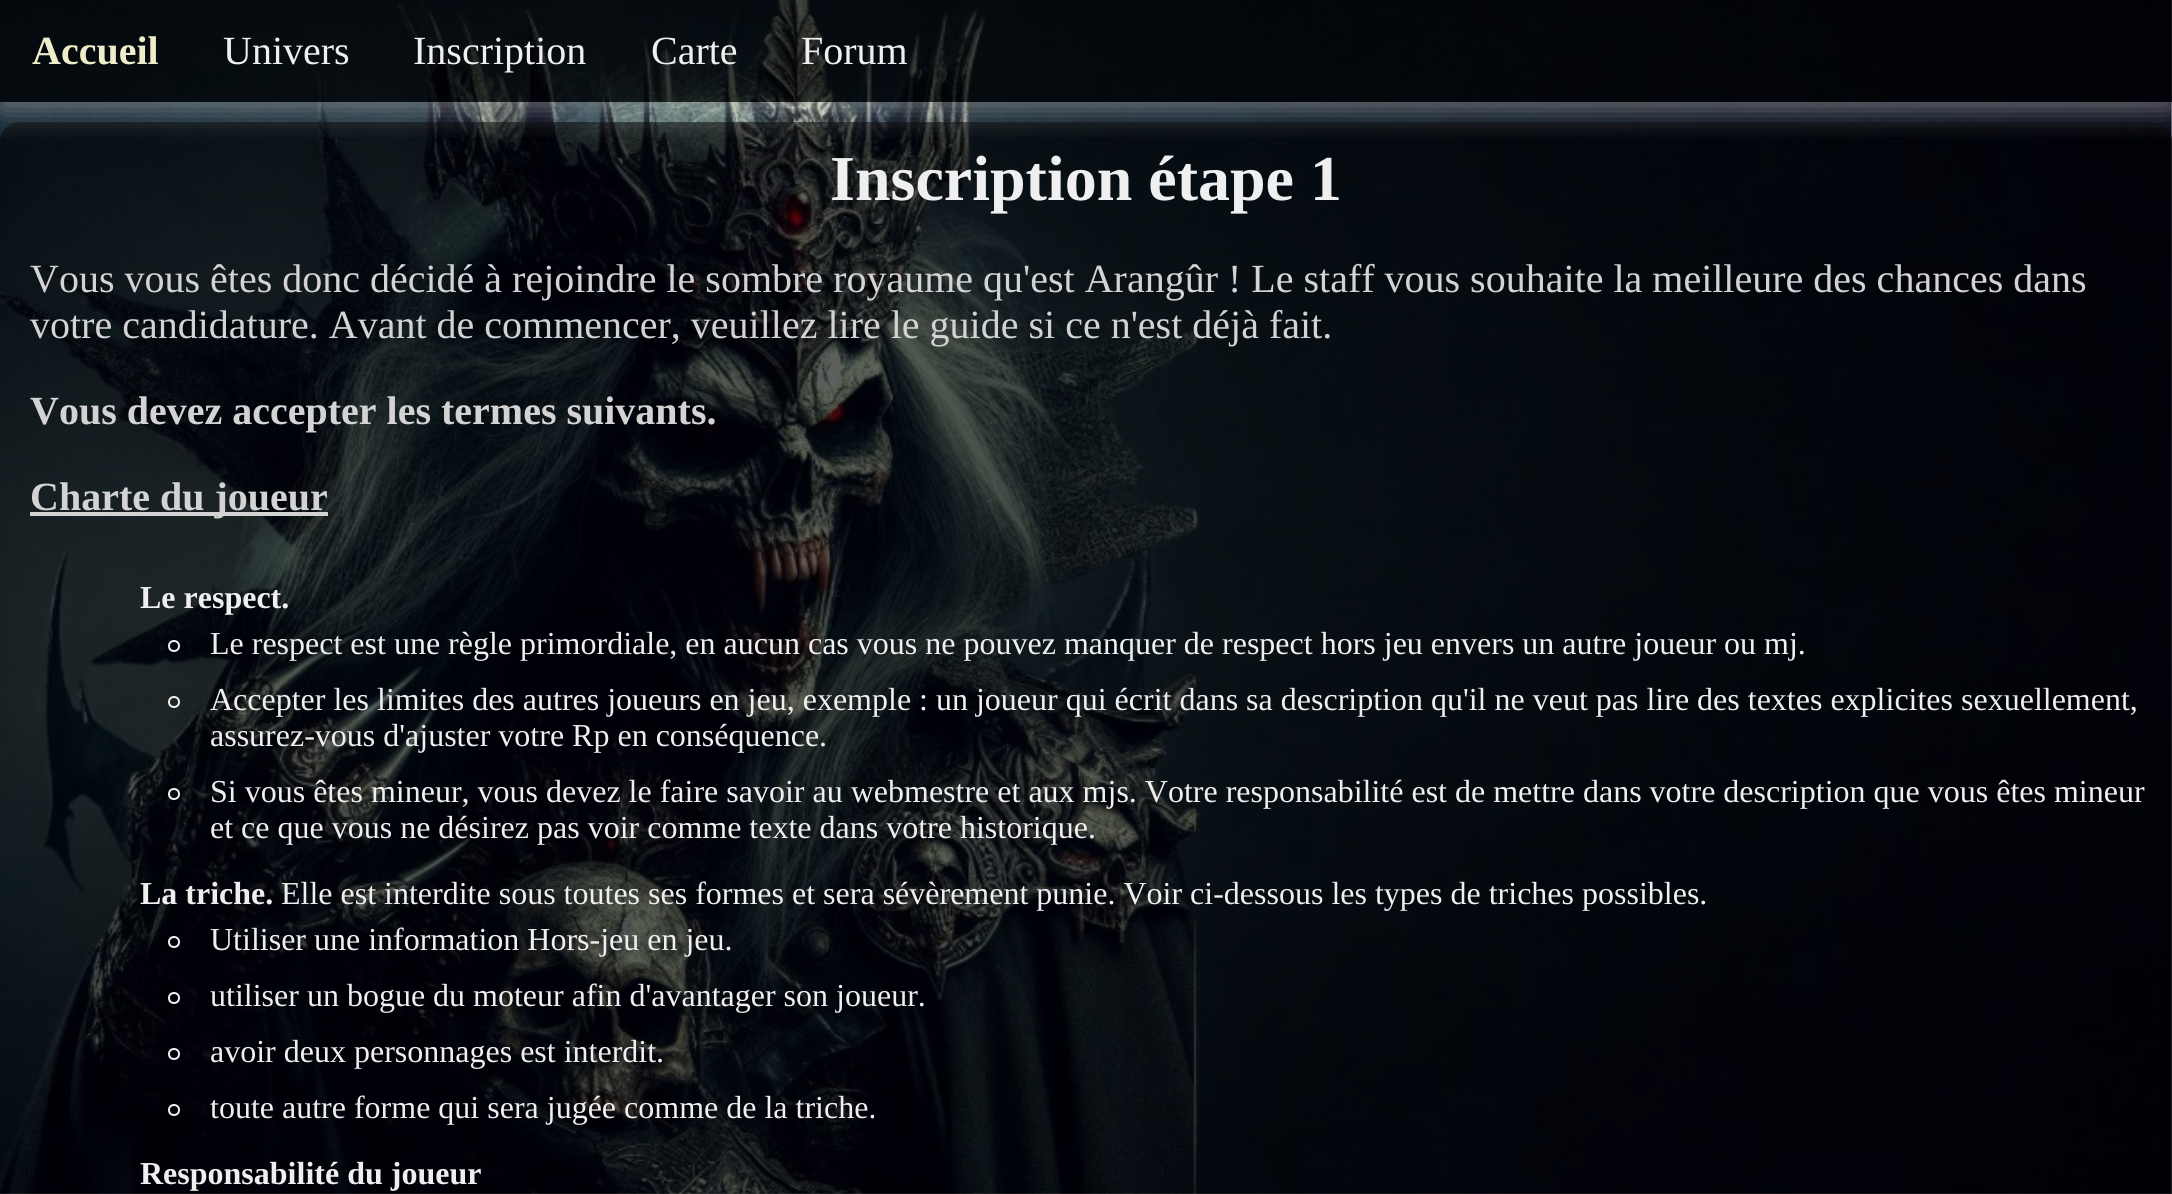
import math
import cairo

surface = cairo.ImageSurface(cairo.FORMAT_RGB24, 2172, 1194)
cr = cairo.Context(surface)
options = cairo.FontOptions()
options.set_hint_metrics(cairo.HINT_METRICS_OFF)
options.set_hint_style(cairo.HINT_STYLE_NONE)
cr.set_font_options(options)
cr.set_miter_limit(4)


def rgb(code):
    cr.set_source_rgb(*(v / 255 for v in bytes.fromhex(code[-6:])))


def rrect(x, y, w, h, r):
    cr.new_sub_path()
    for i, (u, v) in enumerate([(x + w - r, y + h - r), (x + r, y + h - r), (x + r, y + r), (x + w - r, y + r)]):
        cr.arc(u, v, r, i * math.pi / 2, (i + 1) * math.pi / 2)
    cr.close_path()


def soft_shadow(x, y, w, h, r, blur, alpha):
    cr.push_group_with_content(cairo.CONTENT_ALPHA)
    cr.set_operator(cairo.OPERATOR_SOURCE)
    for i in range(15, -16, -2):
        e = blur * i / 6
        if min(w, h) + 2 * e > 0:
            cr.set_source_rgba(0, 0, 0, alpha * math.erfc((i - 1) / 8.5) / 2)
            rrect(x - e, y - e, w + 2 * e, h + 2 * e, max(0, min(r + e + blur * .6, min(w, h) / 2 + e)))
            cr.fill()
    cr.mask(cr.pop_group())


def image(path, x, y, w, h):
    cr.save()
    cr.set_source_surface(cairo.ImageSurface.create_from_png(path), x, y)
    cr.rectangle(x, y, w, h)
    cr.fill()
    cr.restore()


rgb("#ffffff")
cr.paint()
image("img/1.png", 0, 0, 2172, 1194)
cr.set_source_rgba(0, 0, 0, 0.6)
rrect(0, 122, 2172, 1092, 20)
cr.fill()
cr.save()
cr.rectangle(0, 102, 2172, 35)
cr.clip()
rgb("#b4b4b4")
soft_shadow(0, 8, 2172, 102, 0, 15, 0.6)
cr.restore()
cr.set_source_rgba(0, 0, 0, 0.7)
cr.rectangle(0, 0, 2172, 102)
cr.fill()
rgb("#d3d3d3")
cr.rectangle(30, 512, 298, 4)
cr.fill()
cr.arc(174, 646, 5, 0, 2 * math.pi)
rgb("#efefef")
cr.stroke()
cr.arc(174, 702, 5, 0, 2 * math.pi)
cr.stroke()
cr.arc(174, 794, 5, 0, 2 * math.pi)
cr.stroke()
cr.arc(174, 942, 5, 0, 2 * math.pi)
cr.stroke()
cr.arc(174, 998, 5, 0, 2 * math.pi)
cr.stroke()
cr.arc(174, 1054, 5, 0, 2 * math.pi)
cr.stroke()
cr.arc(174, 1110, 5, 0, 2 * math.pi)
cr.stroke()
cr.select_font_face("Liberation Serif", cairo.FONT_SLANT_NORMAL, cairo.FONT_WEIGHT_BOLD)
cr.set_font_size(40)
rgb("#efecca")
cr.move_to(32, 64)
cr.show_text("Accueil")
cr.select_font_face("Liberation Serif")
rgb("#efefef")
for x, y, s in [
    (223, 64, "Univers"),
    (413, 64, "Inscription"),
    (651, 64, "Carte"),
    (801, 64, "Forum"),
]:
    cr.move_to(x, y)
    cr.show_text(s)
cr.select_font_face("Liberation Serif", cairo.FONT_SLANT_NORMAL, cairo.FONT_WEIGHT_BOLD)
cr.set_font_size(64)
cr.move_to(830, 200)
cr.show_text("Inscription étape 1")
cr.select_font_face("Liberation Serif")
cr.set_font_size(40)
rgb("#d3d3d3")
cr.move_to(30, 292)
cr.show_text("Vous vous êtes donc décidé à rejoindre le sombre royaume qu'est Arangûr ! Le staff vous souhaite la meilleure des chances dans")
cr.move_to(30, 338)
cr.show_text("votre candidature. Avant de commencer, veuillez lire le guide si ce n'est déjà fait.")
cr.select_font_face("Liberation Serif", cairo.FONT_SLANT_NORMAL, cairo.FONT_WEIGHT_BOLD)
cr.move_to(30, 424)
cr.show_text("Vous devez accepter les termes suivants.")
cr.move_to(30, 510)
cr.show_text("Charte du joueur")
cr.set_font_size(32)
rgb("#efefef")
cr.move_to(140, 608)
cr.show_text("Le respect.")
cr.select_font_face("Liberation Serif")
for x, y, s in [
    (210, 654, "Le respect est une règle primordiale, en aucun cas vous ne pouvez manquer de respect hors jeu envers un autre joueur ou mj."),
    (210, 710, "Accepter les limites des autres joueurs en jeu, exemple : un joueur qui écrit dans sa description qu'il ne veut pas lire des textes explicites sexuellement,"),
    (210, 746, "assurez-vous d'ajuster votre Rp en conséquence."),
    (210, 802, "Si vous êtes mineur, vous devez le faire savoir au webmestre et aux mjs. Votre responsabilité est de mettre dans votre description que vous êtes mineur"),
    (210, 838, "et ce que vous ne désirez pas voir comme texte dans votre historique."),
]:
    cr.move_to(x, y)
    cr.show_text(s)
cr.select_font_face("Liberation Serif", cairo.FONT_SLANT_NORMAL, cairo.FONT_WEIGHT_BOLD)
cr.move_to(140, 904)
cr.show_text("La triche.")
cr.select_font_face("Liberation Serif")
for x, y, s in [
    (281, 904, "Elle est interdite sous toutes ses formes et sera sévèrement punie. Voir ci-dessous les types de triches possibles."),
    (210, 950, "Utiliser une information Hors-jeu en jeu."),
    (210, 1006, "utiliser un bogue du moteur afin d'avantager son joueur."),
    (210, 1062, "avoir deux personnages est interdit."),
    (210, 1118, "toute autre forme qui sera jugée comme de la triche."),
]:
    cr.move_to(x, y)
    cr.show_text(s)
cr.select_font_face("Liberation Serif", cairo.FONT_SLANT_NORMAL, cairo.FONT_WEIGHT_BOLD)
cr.move_to(140, 1184)
cr.show_text("Responsabilité du joueur")
surface.write_to_png("page.png")
